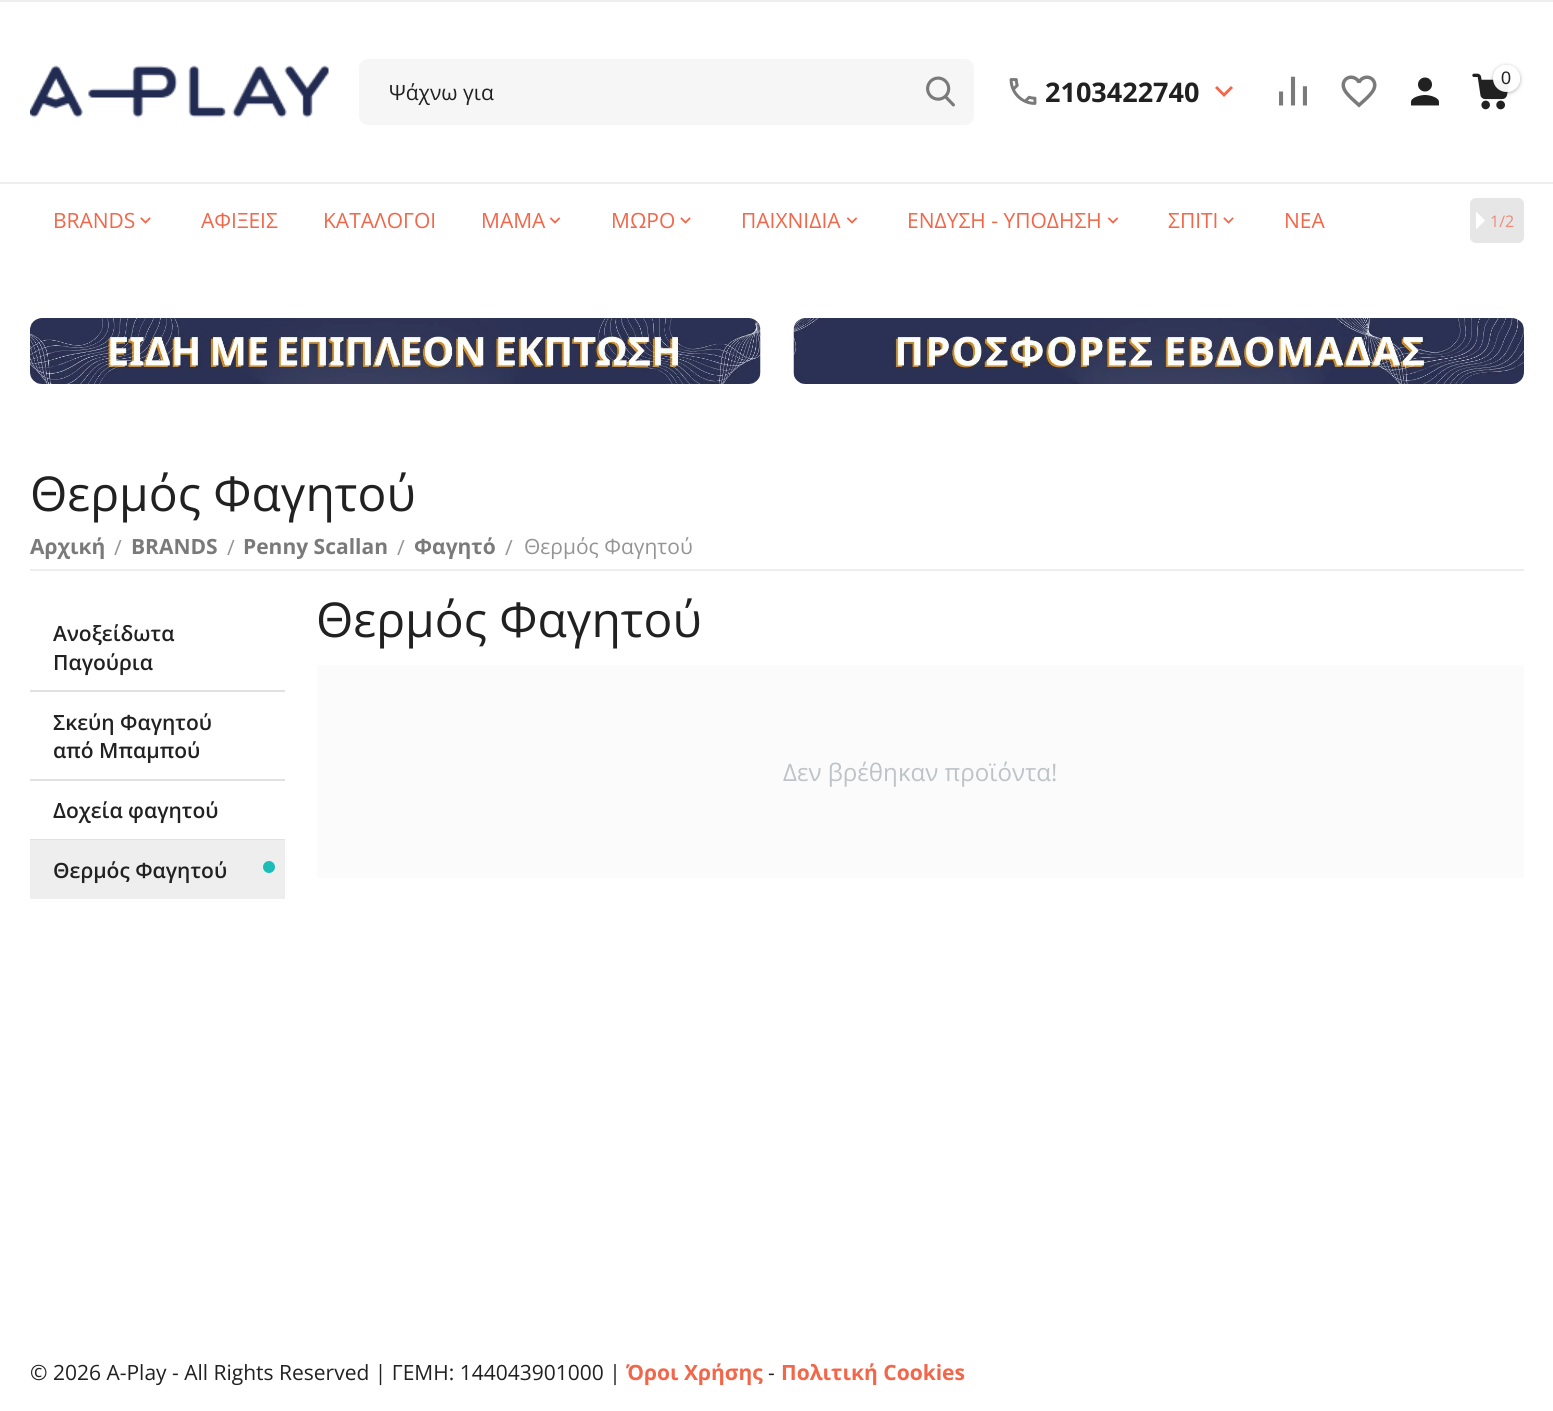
import math
import cairo

surface = cairo.ImageSurface(cairo.FORMAT_RGB24, 1553, 1411)
cr = cairo.Context(surface)
options = cairo.FontOptions()
options.set_hint_metrics(cairo.HINT_METRICS_OFF)
options.set_hint_style(cairo.HINT_STYLE_NONE)
cr.set_font_options(options)
cr.set_miter_limit(4)


def rgb(code):
    cr.set_source_rgb(*(v / 255 for v in bytes.fromhex(code[-6:])))


def rrect(x, y, w, h, r):
    cr.new_sub_path()
    for i, (u, v) in enumerate([(x + w - r, y + h - r), (x + r, y + h - r), (x + r, y + r), (x + w - r, y + r)]):
        cr.arc(u, v, r, i * math.pi / 2, (i + 1) * math.pi / 2)
    cr.close_path()


def soft_shadow(x, y, w, h, r, blur, alpha):
    cr.push_group_with_content(cairo.CONTENT_ALPHA)
    cr.set_operator(cairo.OPERATOR_SOURCE)
    for i in range(15, -16, -2):
        e = blur * i / 6
        if min(w, h) + 2 * e > 0:
            cr.set_source_rgba(0, 0, 0, alpha * math.erfc((i - 1) / 8.5) / 2)
            rrect(x - e, y - e, w + 2 * e, h + 2 * e, max(0, min(r + e + blur * .6, min(w, h) / 2 + e)))
            cr.fill()
    cr.mask(cr.pop_group())


def image(path, x, y, w, h):
    cr.save()
    cr.set_source_surface(cairo.ImageSurface.create_from_png(path), x, y)
    cr.rectangle(x, y, w, h)
    cr.fill()
    cr.restore()


rgb("#ffffff")
cr.paint()
rgb("#eeeeee")
cr.rectangle(0, 0, 1553, 2)
cr.fill()
image("img/1.png", 30, 65, 299, 53)
image("img/2.png", 1279, 76, 28, 30)
image("img/3.png", 1341, 75, 36, 33)
image("img/4.png", 1411, 77, 28, 29)
image("img/5.png", 1472, 73, 38, 37)
cr.save()
cr.set_fill_rule(cairo.FILL_RULE_EVEN_ODD)
cr.new_path()
cr.move_to(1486, 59)
cr.line_to(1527, 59)
cr.line_to(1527, 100)
cr.line_to(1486, 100)
cr.close_path()
cr.move_to(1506.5, 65)
cr.curve_to(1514, 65, 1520, 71, 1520, 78.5)
cr.curve_to(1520, 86, 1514, 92, 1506.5, 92)
cr.curve_to(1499, 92, 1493, 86, 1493, 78.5)
cr.curve_to(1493, 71, 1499, 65, 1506.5, 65)
cr.close_path()
cr.clip()
rgb("#212121")
soft_shadow(1493, 66, 27, 27, 13.5, 2, 0.35)
cr.restore()
cr.set_source_rgba(1, 1, 1, 0.95)
cr.arc(1506.5, 78.5, 13.5, 0, 2 * math.pi)
cr.fill()
rgb("#f6f6f6")
rrect(359, 59, 615, 66, 9)
cr.fill()
image("img/6.png", 926, 76, 29, 31)
image("img/7.png", 1009, 78, 28, 27)
rgb("#f26649")
cr.new_path()
cr.move_to(1231, 86)
cr.line_to(1224, 93)
cr.line_to(1217, 86)
cr.line_to(1215, 88)
cr.line_to(1224, 97)
cr.line_to(1233, 88)
cr.close_path()
cr.fill()
rgb("#eeeeee")
cr.rectangle(0, 182, 1553, 2)
cr.fill()
image("img/8.png", 140, 217, 11, 7)
image("img/9.png", 549, 217, 12, 7)
image("img/8.png", 680, 217, 11, 7)
image("img/9.png", 846, 217, 12, 7)
image("img/9.png", 1107, 217, 12, 7)
image("img/8.png", 1223, 217, 11, 7)
rgb("#e6e6e6")
rrect(1470, 198, 54, 45, 6)
cr.fill()
rgb("#ffffff")
cr.new_path()
cr.move_to(1476, 229.5)
cr.line_to(1476, 211.5)
cr.line_to(1485, 220.5)
cr.close_path()
cr.fill()
image("img/10.png", 30, 318, 731, 66)
image("img/11.png", 793, 318, 731, 66)
for x, y, w, h, color in [
    (30, 569, 1494, 2, "#eeeeee"),
    (30, 690, 255, 2, "#e1e1e1"),
    (30, 779, 255, 2, "#e1e1e1"),
    (30, 839, 255, 1, "#e1e1e1"),
    (30, 840, 255, 59, "#eeeeee"),
]:
    rgb(color)
    cr.rectangle(x, y, w, h)
    cr.fill()
rgb("#1dbdb7")
cr.arc(269, 867, 6, 0, 2 * math.pi)
cr.fill()
rgb("#fbfbfb")
cr.rectangle(317, 665, 1207, 213)
cr.fill()
cr.select_font_face("Liberation Sans")
cr.set_font_size(18)
rgb("#212121")
cr.move_to(1501, 84)
cr.show_text("0")
cr.select_font_face("Open Sans")
cr.set_font_size(21)
cr.move_to(389, 100)
cr.show_text("Ψάχνω για")
cr.select_font_face("Open Sans", cairo.FONT_SLANT_NORMAL, cairo.FONT_WEIGHT_BOLD)
cr.set_font_size(27)
cr.move_to(1045, 102)
cr.show_text("2103422740")
cr.select_font_face("Open Sans")
cr.set_font_size(21)
rgb("#f26649")
for x, y, s in [
    (53, 228, "BRANDS"),
    (201, 228, "ΑΦΙΞΕΙΣ"),
    (323, 228, "ΚΑΤΑΛΟΓΟΙ"),
    (481, 228, "ΜΑΜΑ"),
    (611, 228, "ΜΩΡΟ"),
    (741, 228, "ΠΑΙΧΝΙΔΙΑ"),
    (907, 228, "ΕΝΔΥΣΗ - ΥΠΟΔΗΣΗ"),
    (1168, 228, "ΣΠΙΤΙ"),
    (1284, 228, "ΝΕΑ"),
]:
    cr.move_to(x, y)
    cr.show_text(s)
cr.set_font_size(16)
rgb("#ee8c78")
cr.move_to(1490, 227)
cr.show_text("1/2")
cr.set_font_size(48)
rgb("#212121")
cr.move_to(30, 511)
cr.show_text("Θερμός Φαγητού")
cr.select_font_face("Open Sans", cairo.FONT_SLANT_NORMAL, cairo.FONT_WEIGHT_BOLD)
cr.set_font_size(21)
rgb("#7a7a7a")
cr.move_to(30, 554)
cr.show_text("Αρχική")
cr.select_font_face("Open Sans")
rgb("#949494")
cr.move_to(114, 555)
cr.show_text("/")
cr.select_font_face("Open Sans", cairo.FONT_SLANT_NORMAL, cairo.FONT_WEIGHT_BOLD)
rgb("#7a7a7a")
cr.move_to(131, 554)
cr.show_text("BRANDS")
cr.select_font_face("Open Sans")
rgb("#949494")
cr.move_to(227, 555)
cr.show_text("/")
cr.select_font_face("Open Sans", cairo.FONT_SLANT_NORMAL, cairo.FONT_WEIGHT_BOLD)
rgb("#7a7a7a")
cr.move_to(243, 554)
cr.show_text("Penny Scallan")
cr.select_font_face("Open Sans")
rgb("#949494")
cr.move_to(397, 555)
cr.show_text("/")
cr.select_font_face("Open Sans", cairo.FONT_SLANT_NORMAL, cairo.FONT_WEIGHT_BOLD)
rgb("#7a7a7a")
cr.move_to(414, 554)
cr.show_text("Φαγητό")
cr.select_font_face("Open Sans")
rgb("#949494")
cr.move_to(505, 555)
cr.show_text("/")
cr.move_to(524, 554)
cr.show_text("Θερμός Φαγητού")
cr.select_font_face("Open Sans SemiBold")
rgb("#212121")
for x, y, s in [
    (53, 641, "Ανοξείδωτα"),
    (53, 670, "Παγούρια"),
    (53, 730, "Σκεύη Φαγητού"),
    (53, 758, "από Μπαμπού"),
    (53, 818, "Δοχεία φαγητού"),
    (53, 878, "Θερμός Φαγητού"),
]:
    cr.move_to(x, y)
    cr.show_text(s)
cr.select_font_face("Open Sans")
cr.set_font_size(48)
cr.move_to(316, 637)
cr.show_text("Θερμός Φαγητού")
cr.set_font_size(24.1)
rgb("#bdc3c7")
cr.move_to(783, 781)
cr.show_text("Δεν βρέθηκαν προϊόντα!")
cr.set_font_size(21)
rgb("#212121")
cr.move_to(30, 1380)
cr.show_text("© 2026 A-Play - All Rights Reserved | ΓΕΜΗ: 144043901000 |")
cr.select_font_face("Open Sans", cairo.FONT_SLANT_NORMAL, cairo.FONT_WEIGHT_BOLD)
rgb("#f26649")
cr.move_to(626, 1380)
cr.show_text("Όροι Χρήσης")
cr.select_font_face("Open Sans")
rgb("#212121")
cr.move_to(768, 1380)
cr.show_text("-")
cr.select_font_face("Open Sans", cairo.FONT_SLANT_NORMAL, cairo.FONT_WEIGHT_BOLD)
rgb("#f26649")
cr.move_to(781, 1380)
cr.show_text("Πολιτική Cookies")
surface.write_to_png("page.png")
